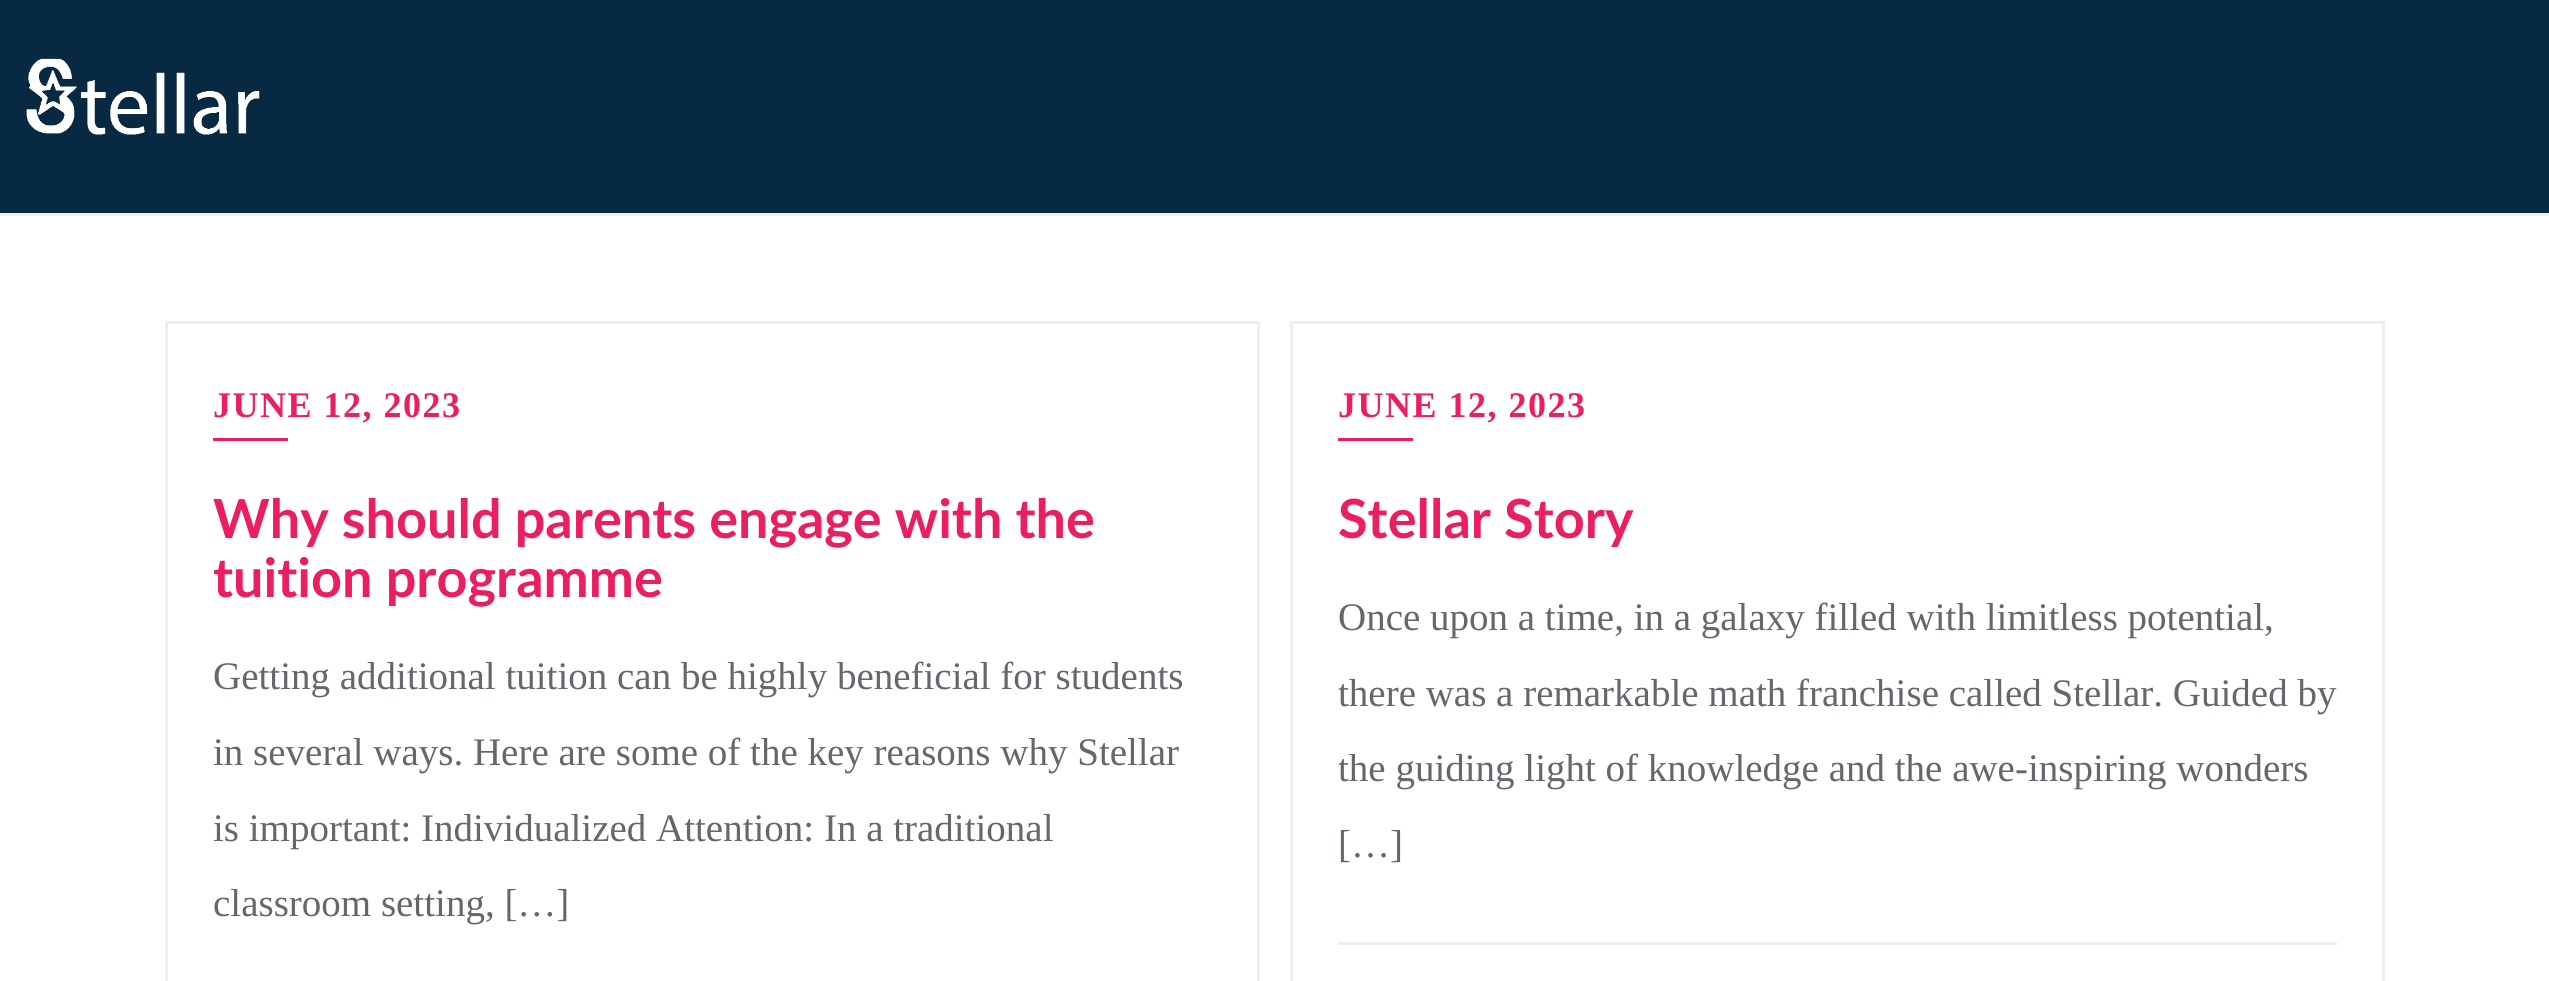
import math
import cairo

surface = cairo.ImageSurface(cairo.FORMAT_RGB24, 2549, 981)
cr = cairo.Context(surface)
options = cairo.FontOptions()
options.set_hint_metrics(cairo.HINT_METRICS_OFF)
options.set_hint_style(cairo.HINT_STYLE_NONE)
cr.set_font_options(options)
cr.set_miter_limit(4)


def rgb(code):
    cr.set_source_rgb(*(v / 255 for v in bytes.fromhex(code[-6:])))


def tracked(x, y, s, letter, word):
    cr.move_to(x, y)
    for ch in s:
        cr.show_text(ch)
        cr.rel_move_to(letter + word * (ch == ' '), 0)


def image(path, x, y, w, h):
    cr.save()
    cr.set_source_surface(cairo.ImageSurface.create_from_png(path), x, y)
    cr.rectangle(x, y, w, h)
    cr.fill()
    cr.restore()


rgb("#ffffff")
cr.paint()
rgb("#eeeeee")
cr.rectangle(0, 213, 2549, 3)
cr.fill()
rgb("#072942")
cr.rectangle(0, 0, 2549, 213)
cr.fill()
image("img/1.png", 26, 58, 234, 77)
cr.rectangle(166.5, 322.5, 1092, 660)
rgb("#eeeeee")
cr.set_line_width(3)
cr.stroke()
rgb("#e91e63")
cr.rectangle(213, 438, 75, 3)
cr.fill()
cr.rectangle(1291.5, 322.5, 1092, 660)
rgb("#eeeeee")
cr.stroke()
rgb("#e91e63")
cr.rectangle(1338, 438, 75, 3)
cr.fill()
rgb("#eeeeee")
cr.rectangle(1338, 942, 999, 3)
cr.fill()
cr.select_font_face("Liberation Serif", cairo.FONT_SLANT_NORMAL, cairo.FONT_WEIGHT_BOLD)
cr.set_font_size(36)
rgb("#e91e63")
tracked(213, 417, "JUNE 12, 2023", 1.5, 0)
cr.select_font_face("Lato", cairo.FONT_SLANT_NORMAL, cairo.FONT_WEIGHT_BOLD)
cr.set_font_size(54)
cr.move_to(213, 538)
cr.show_text("Why should parents engage with the")
cr.move_to(213, 597)
cr.show_text("tuition programme")
cr.select_font_face("Liberation Serif")
cr.set_font_size(39)
rgb("#64686d")
for x, y, s in [
    (213, 689, "Getting additional tuition can be highly beneficial for students"),
    (213, 765, "in several ways. Here are some of the key reasons why Stellar"),
    (213, 841, "is important: Individualized Attention: In a traditional"),
    (213, 916, "classroom setting, […]"),
]:
    cr.move_to(x, y)
    cr.show_text(s)
cr.select_font_face("Liberation Serif", cairo.FONT_SLANT_NORMAL, cairo.FONT_WEIGHT_BOLD)
cr.set_font_size(36)
rgb("#e91e63")
tracked(1338, 417, "JUNE 12, 2023", 1.5, 0)
cr.select_font_face("Lato", cairo.FONT_SLANT_NORMAL, cairo.FONT_WEIGHT_BOLD)
cr.set_font_size(54)
cr.move_to(1338, 538)
cr.show_text("Stellar Story")
cr.select_font_face("Liberation Serif")
cr.set_font_size(39)
rgb("#64686d")
for x, y, s in [
    (1338, 630, "Once upon a time, in a galaxy filled with limitless potential,"),
    (1338, 706, "there was a remarkable math franchise called Stellar. Guided by"),
    (1338, 781, "the guiding light of knowledge and the awe-inspiring wonders"),
    (1338, 857, "[…]"),
]:
    cr.move_to(x, y)
    cr.show_text(s)
surface.write_to_png("page.png")
